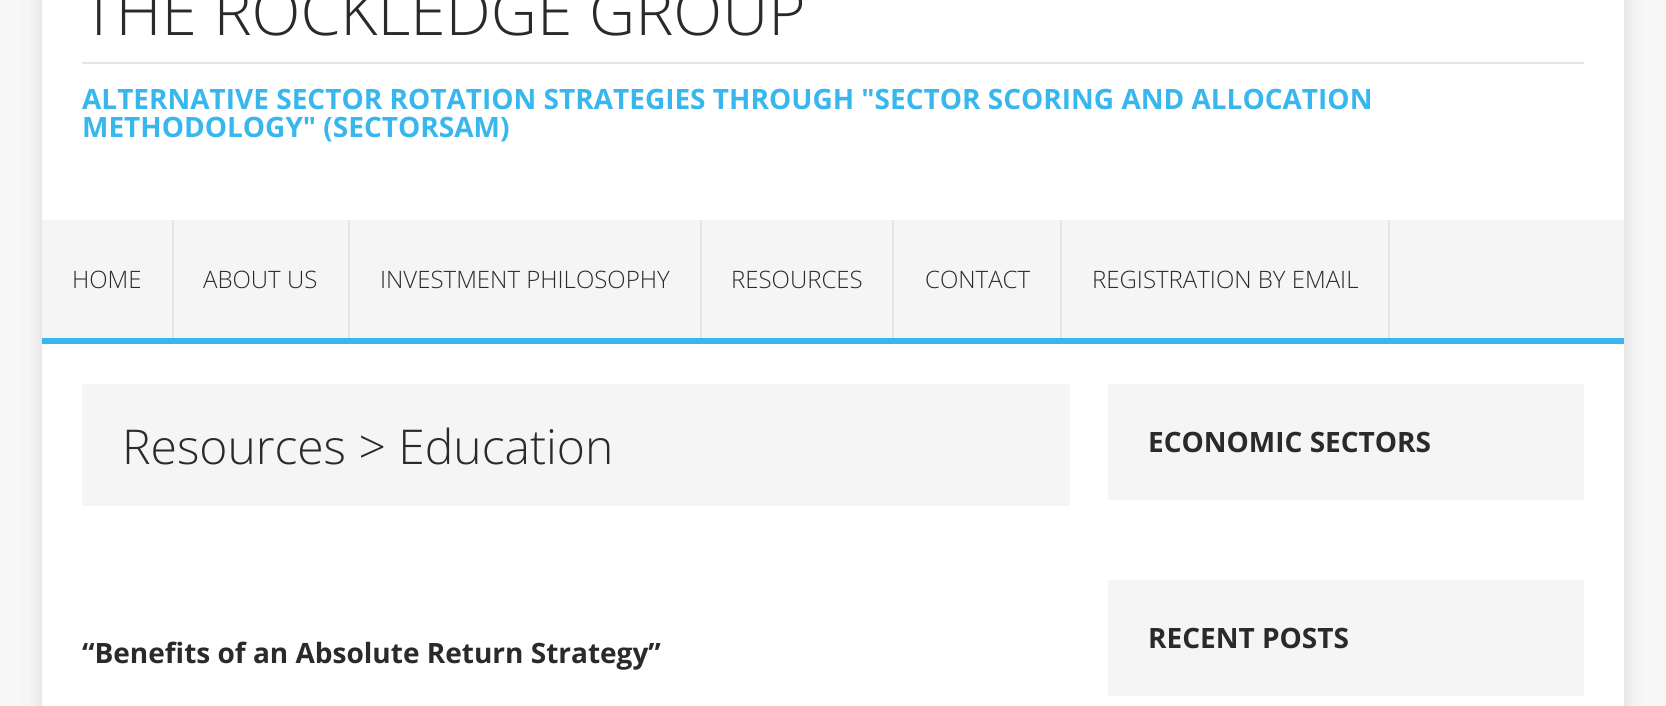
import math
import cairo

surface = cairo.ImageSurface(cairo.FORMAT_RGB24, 1666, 706)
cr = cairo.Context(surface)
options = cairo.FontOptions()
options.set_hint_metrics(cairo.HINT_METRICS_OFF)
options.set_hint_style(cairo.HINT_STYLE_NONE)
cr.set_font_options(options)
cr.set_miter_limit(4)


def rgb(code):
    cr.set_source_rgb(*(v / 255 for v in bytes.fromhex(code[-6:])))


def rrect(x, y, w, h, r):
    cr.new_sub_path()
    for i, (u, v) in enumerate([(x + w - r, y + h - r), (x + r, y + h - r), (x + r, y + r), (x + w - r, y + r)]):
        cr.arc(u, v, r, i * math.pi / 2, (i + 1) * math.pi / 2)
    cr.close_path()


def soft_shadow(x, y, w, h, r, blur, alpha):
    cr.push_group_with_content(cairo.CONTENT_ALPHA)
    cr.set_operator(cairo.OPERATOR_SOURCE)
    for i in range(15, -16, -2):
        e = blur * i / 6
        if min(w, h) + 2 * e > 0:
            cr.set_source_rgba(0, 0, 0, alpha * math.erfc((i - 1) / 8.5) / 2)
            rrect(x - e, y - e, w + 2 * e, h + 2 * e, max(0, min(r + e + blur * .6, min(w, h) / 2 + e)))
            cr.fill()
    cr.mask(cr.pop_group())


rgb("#f7f7f7")
cr.paint()
rgb("#323232")
soft_shadow(42, -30, 1582, 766, 0, 10, 0.17)
for x, y, w, h, color in [
    (42, 0, 1582, 220, "#ffffff"),
    (42, 338, 1582, 6, "#38b7ee"),
    (82, 62, 1502, 2, "#e5e5e5"),
    (42, 220, 1582, 118, "#f5f5f5"),
    (172, 220, 2, 118, "#e5e5e5"),
    (348, 220, 2, 118, "#e5e5e5"),
    (700, 220, 2, 118, "#e5e5e5"),
    (892, 220, 2, 118, "#e5e5e5"),
    (1060, 220, 2, 118, "#e5e5e5"),
    (1388, 220, 2, 118, "#e5e5e5"),
    (42, 344, 1582, 362, "#ffffff"),
    (82, 384, 988, 122, "#f5f5f5"),
    (1108, 384, 476, 116, "#f5f5f5"),
    (1108, 580, 476, 116, "#f5f5f5"),
]:
    rgb(color)
    cr.rectangle(x, y, w, h)
    cr.fill()
cr.select_font_face("Open Sans Light")
cr.set_font_size(64)
rgb("#2a2a2a")
cr.move_to(82, 35)
cr.show_text("THE ROCKLEDGE GROUP")
cr.select_font_face("Open Sans", cairo.FONT_SLANT_NORMAL, cairo.FONT_WEIGHT_BOLD)
cr.set_font_size(28)
rgb("#38b7ee")
cr.move_to(82, 109)
cr.show_text("ALTERNATIVE SECTOR ROTATION STRATEGIES THROUGH \"SECTOR SCORING AND ALLOCATION")
cr.move_to(82, 137)
cr.show_text("METHODOLOGY\" (SECTORSAM)")
cr.select_font_face("Open Sans Light")
cr.set_font_size(24)
rgb("#2a2a2a")
for x, y, s in [
    (72, 288, "HOME"),
    (203, 288, "ABOUT US"),
    (380, 288, "INVESTMENT PHILOSOPHY"),
    (731, 288, "RESOURCES"),
    (925, 288, "CONTACT"),
    (1092, 288, "REGISTRATION BY EMAIL"),
]:
    cr.move_to(x, y)
    cr.show_text(s)
cr.set_font_size(48)
cr.move_to(122, 464)
cr.show_text("Resources > Education")
cr.select_font_face("Open Sans", cairo.FONT_SLANT_NORMAL, cairo.FONT_WEIGHT_BOLD)
cr.set_font_size(28)
for x, y, s in [
    (82, 663, "“Benefits of an Absolute Return Strategy”"),
    (1148, 452, "ECONOMIC SECTORS"),
    (1148, 648, "RECENT POSTS"),
]:
    cr.move_to(x, y)
    cr.show_text(s)
surface.write_to_png("page.png")
